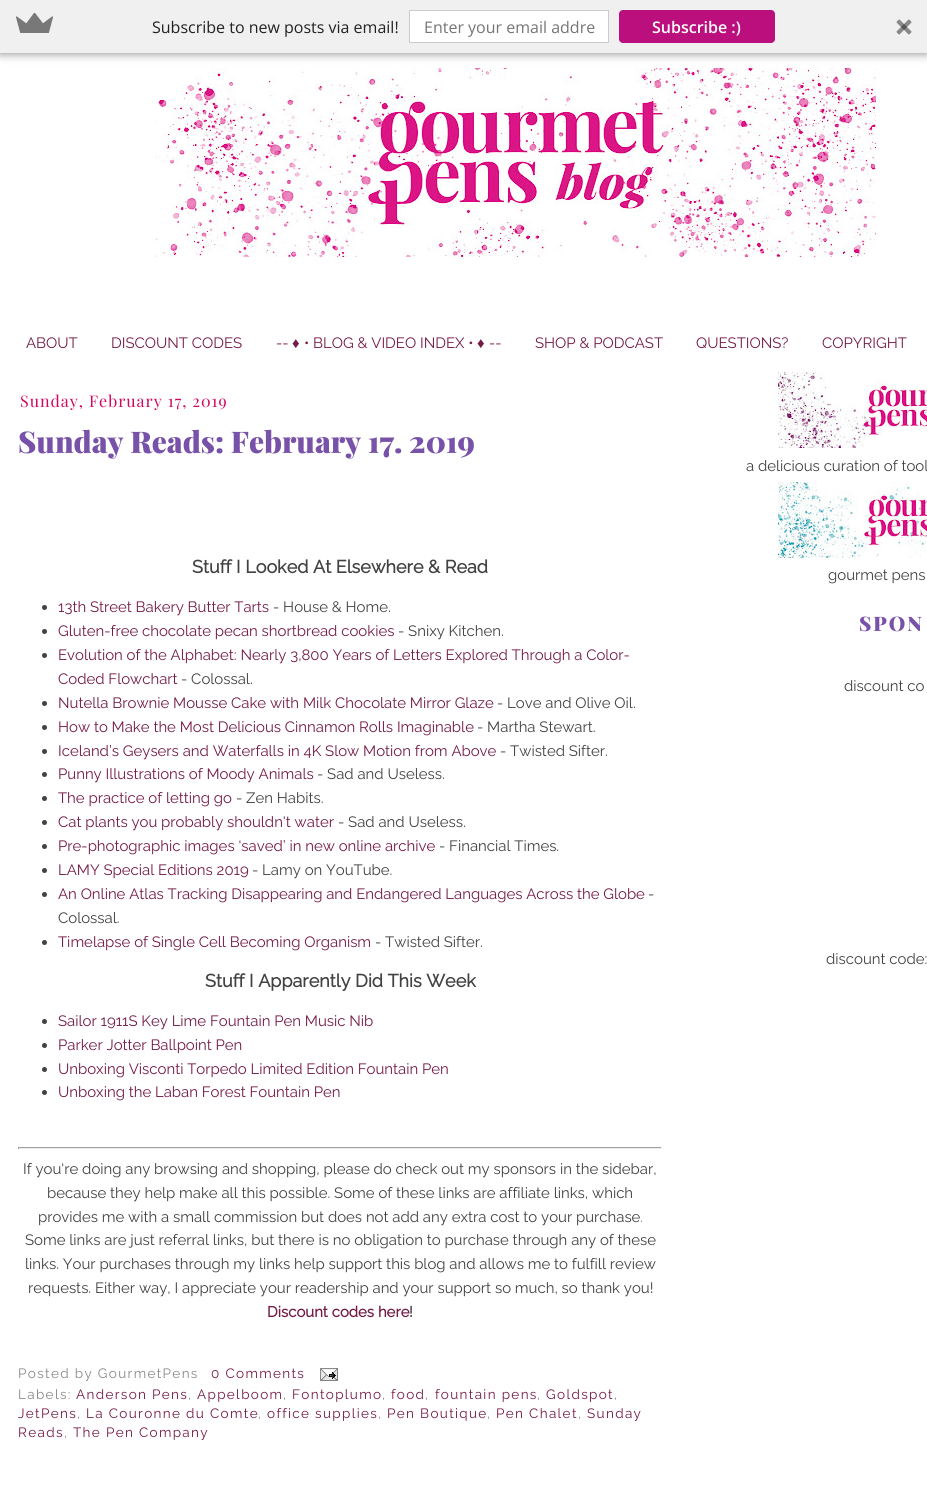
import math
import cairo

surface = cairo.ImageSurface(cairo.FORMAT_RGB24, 927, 1491)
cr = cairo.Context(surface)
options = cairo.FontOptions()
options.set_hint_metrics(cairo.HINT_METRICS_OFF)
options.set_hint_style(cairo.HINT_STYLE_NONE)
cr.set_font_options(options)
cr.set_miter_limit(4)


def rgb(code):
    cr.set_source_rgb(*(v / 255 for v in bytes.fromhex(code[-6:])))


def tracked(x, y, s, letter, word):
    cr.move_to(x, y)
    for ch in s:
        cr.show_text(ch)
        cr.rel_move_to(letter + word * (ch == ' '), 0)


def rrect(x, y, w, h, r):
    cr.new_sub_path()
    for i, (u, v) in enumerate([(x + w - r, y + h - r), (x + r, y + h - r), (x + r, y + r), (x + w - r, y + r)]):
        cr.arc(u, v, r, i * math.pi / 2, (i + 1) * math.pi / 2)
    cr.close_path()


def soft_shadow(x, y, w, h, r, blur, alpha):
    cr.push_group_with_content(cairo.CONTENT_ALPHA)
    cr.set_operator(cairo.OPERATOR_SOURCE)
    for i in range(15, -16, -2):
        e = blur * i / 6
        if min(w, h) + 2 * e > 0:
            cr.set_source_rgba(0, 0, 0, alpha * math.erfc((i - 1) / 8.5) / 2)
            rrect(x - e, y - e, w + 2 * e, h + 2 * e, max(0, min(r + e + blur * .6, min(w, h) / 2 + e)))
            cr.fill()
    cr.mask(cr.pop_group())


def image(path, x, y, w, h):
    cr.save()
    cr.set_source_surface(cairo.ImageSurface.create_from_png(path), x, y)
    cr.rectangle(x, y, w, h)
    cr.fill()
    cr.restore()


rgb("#ffffff")
cr.paint()
image("img/3.png", 155, 68, 721, 189)
rgb("#000000")
soft_shadow(0, 0, 927, 53, 0, 5, 0.5)
rgb("#f0f0f0")
cr.rectangle(0, 0, 927, 53)
cr.fill()
image("img/1.png", 16, 13, 37, 20)
rgb("#ffffff")
cr.rectangle(409.5, 10.5, 199, 32)
cr.fill_preserve()
rgb("#cccccc")
cr.set_line_width(1)
cr.stroke()
rgb("#ba0f7d")
rrect(619, 10, 156, 33, 4)
cr.fill()
image("img/2.png", 896, 19, 16, 16)
rgb("#424242")
cr.arc(44.5, 607.5, 2.5, 0, 2 * math.pi)
cr.fill()
cr.arc(44.5, 631.5, 2.5, 0, 2 * math.pi)
cr.fill()
cr.arc(44.5, 655.5, 2.5, 0, 2 * math.pi)
cr.fill()
cr.arc(44.5, 703.5, 2.5, 0, 2 * math.pi)
cr.fill()
cr.arc(44.5, 727.5, 2.5, 0, 2 * math.pi)
cr.fill()
cr.arc(44.5, 751.5, 2.5, 0, 2 * math.pi)
cr.fill()
cr.arc(44.5, 774.5, 2.5, 0, 2 * math.pi)
cr.fill()
cr.arc(44.5, 798.5, 2.5, 0, 2 * math.pi)
cr.fill()
cr.arc(44.5, 822.5, 2.5, 0, 2 * math.pi)
cr.fill()
cr.arc(44.5, 846.5, 2.5, 0, 2 * math.pi)
cr.fill()
cr.arc(44.5, 870.5, 2.5, 0, 2 * math.pi)
cr.fill()
cr.arc(44.5, 894.5, 2.5, 0, 2 * math.pi)
cr.fill()
cr.arc(44.5, 942.5, 2.5, 0, 2 * math.pi)
cr.fill()
cr.arc(44.5, 1021.5, 2.5, 0, 2 * math.pi)
cr.fill()
cr.arc(44.5, 1045.5, 2.5, 0, 2 * math.pi)
cr.fill()
cr.arc(44.5, 1069.5, 2.5, 0, 2 * math.pi)
cr.fill()
cr.arc(44.5, 1092.5, 2.5, 0, 2 * math.pi)
cr.fill()
for x, y, w, h, color in [
    (18, 1147, 644, 1, "#9f9f9f"),
    (661, 1147, 1, 2, "#eeeeee"),
    (18, 1148, 644, 1, "#eeeeee"),
    (18, 1147, 1, 2, "#9f9f9f"),
]:
    rgb(color)
    cr.rectangle(x, y, w, h)
    cr.fill()
image("img/4.png", 320, 1368, 18, 13)
image("img/5.png", 778, 372, 149, 76)
image("img/6.png", 778, 482, 149, 76)
cr.select_font_face("Open Sans")
cr.set_font_size(16)
rgb("#222222")
cr.move_to(152, 33)
cr.show_text("Subscribe to new posts via email!")
rgb("#757575")
cr.move_to(424, 33)
cr.show_text("Enter your email addre")
cr.select_font_face("Open Sans SemiBold")
rgb("#ffffff")
cr.move_to(652, 33)
cr.show_text("Subscribe :)")
cr.select_font_face("Raleway Thin")
cr.set_font_size(14.95)
rgb("#741b47")
for x, y, s in [
    (26, 348, "ABOUT"),
    (111, 348, "DISCOUNT CODES"),
    (276, 348, "--"),
]:
    cr.move_to(x, y)
    cr.show_text(s)
cr.select_font_face("Liberation Sans")
cr.move_to(292, 348)
cr.show_text("♦")
cr.select_font_face("Raleway Thin")
cr.move_to(304, 348)
cr.show_text("• BLOG & VIDEO INDEX •")
cr.select_font_face("Liberation Sans")
cr.move_to(477, 348)
cr.show_text("♦")
cr.select_font_face("Raleway Thin")
for x, y, s in [
    (489, 348, "--"),
    (535, 348, "SHOP & PODCAST"),
    (696, 348, "QUESTIONS?"),
    (822, 348, "COPYRIGHT"),
]:
    cr.move_to(x, y)
    cr.show_text(s)
cr.select_font_face("Playfair Display")
cr.set_font_size(16)
rgb("#d4035c")
tracked(20, 407, "Sunday, February 17, 2019", 1, 0)
cr.select_font_face("Playfair Display Black")
cr.set_font_size(29.9)
rgb("#7851a9")
cr.move_to(18, 453)
cr.show_text("Sunday Reads: February 17. 2019")
cr.select_font_face("Raleway", cairo.FONT_SLANT_NORMAL, cairo.FONT_WEIGHT_BOLD)
cr.set_font_size(18)
rgb("#424242")
cr.move_to(192, 573)
cr.show_text("Stuff I Looked At Elsewhere & Read")
cr.select_font_face("Raleway Thin")
cr.set_font_size(14.95)
rgb("#741b47")
cr.move_to(58, 612)
cr.show_text("13th Street Bakery Butter Tarts")
rgb("#424242")
cr.move_to(273, 612)
cr.show_text("- House & Home.")
rgb("#741b47")
cr.move_to(58, 636)
cr.show_text("Gluten-free chocolate pecan shortbread cookies")
rgb("#424242")
cr.move_to(398, 636)
cr.show_text("- Snixy Kitchen.")
rgb("#741b47")
cr.move_to(58, 660)
cr.show_text("Evolution of the Alphabet: Nearly 3,800 Years of Letters Explored Through a Color-")
cr.move_to(58, 684)
cr.show_text("Coded Flowchart")
rgb("#424242")
cr.move_to(181, 684)
cr.show_text("- Colossal.")
rgb("#741b47")
cr.move_to(58, 708)
cr.show_text("Nutella Brownie Mousse Cake with Milk Chocolate Mirror Glaze")
rgb("#424242")
cr.move_to(497, 708)
cr.show_text("- Love and Olive Oil.")
rgb("#741b47")
cr.move_to(58, 732)
cr.show_text("How to Make the Most Delicious Cinnamon Rolls Imaginable")
rgb("#424242")
cr.move_to(477, 732)
cr.show_text("- Martha Stewart.")
rgb("#741b47")
cr.move_to(58, 756)
cr.show_text("Iceland’s Geysers and Waterfalls in 4K Slow Motion from Above")
rgb("#424242")
cr.move_to(500, 756)
cr.show_text("- Twisted Sifter.")
rgb("#741b47")
cr.move_to(58, 779)
cr.show_text("Punny Illustrations of Moody Animals")
rgb("#424242")
cr.move_to(317, 779)
cr.show_text("- Sad and Useless.")
rgb("#741b47")
cr.move_to(58, 803)
cr.show_text("The practice of letting go")
rgb("#424242")
cr.move_to(236, 803)
cr.show_text("- Zen Habits.")
rgb("#741b47")
cr.move_to(58, 827)
cr.show_text("Cat plants you probably shouldn't water")
rgb("#424242")
cr.move_to(338, 827)
cr.show_text("- Sad and Useless.")
rgb("#741b47")
cr.move_to(58, 851)
cr.show_text("Pre-photographic images ‘saved’ in new online archive")
rgb("#424242")
cr.move_to(439, 851)
cr.show_text("- Financial Times.")
rgb("#741b47")
cr.move_to(58, 875)
cr.show_text("LAMY Special Editions 2019")
rgb("#424242")
cr.move_to(252, 875)
cr.show_text("- Lamy on YouTube.")
rgb("#741b47")
cr.move_to(58, 899)
cr.show_text("An Online Atlas Tracking Disappearing and Endangered Languages Across the Globe")
rgb("#424242")
cr.move_to(648, 899)
cr.show_text("-")
cr.move_to(58, 923)
cr.show_text("Colossal.")
rgb("#741b47")
cr.move_to(58, 947)
cr.show_text("Timelapse of Single Cell Becoming Organism")
rgb("#424242")
cr.move_to(375, 947)
cr.show_text("- Twisted Sifter.")
cr.select_font_face("Raleway", cairo.FONT_SLANT_NORMAL, cairo.FONT_WEIGHT_BOLD)
cr.set_font_size(18)
cr.move_to(205, 987)
cr.show_text("Stuff I Apparently Did This Week")
cr.select_font_face("Raleway Thin")
cr.set_font_size(14.95)
rgb("#741b47")
for x, y, s in [
    (58, 1026, "Sailor 1911S Key Lime Fountain Pen Music Nib"),
    (58, 1050, "Parker Jotter Ballpoint Pen"),
    (58, 1074, "Unboxing Visconti Torpedo Limited Edition Fountain Pen"),
    (58, 1097, "Unboxing the Laban Forest Fountain Pen"),
]:
    cr.move_to(x, y)
    cr.show_text(s)
rgb("#424242")
for x, y, s in [
    (23, 1174, "If you're doing any browsing and shopping, please do check out my sponsors in the sidebar,"),
    (47, 1198, "because they help make all this possible. Some of these links are affiliate links, which"),
    (38, 1222, "provides me with a small commission but does not add any extra cost to your purchase."),
    (25, 1245, "Some links are just referral links, but there is no obligation to purchase through any of these"),
    (25, 1269, "links. Your purchases through my links help support this blog and allows me to fulfill review"),
    (28, 1293, "requests. Either way, I appreciate your readership and your support so much, so thank you!"),
]:
    cr.move_to(x, y)
    cr.show_text(s)
cr.select_font_face("Raleway", cairo.FONT_SLANT_NORMAL, cairo.FONT_WEIGHT_BOLD)
rgb("#741b47")
cr.move_to(267, 1317)
cr.show_text("Discount codes here")
rgb("#424242")
cr.move_to(409, 1317)
cr.show_text("!")
cr.select_font_face("Raleway Thin")
cr.set_font_size(13.5)
rgb("#888888")
tracked(18, 1378, "Posted by GourmetPens", 1.35, 0)
rgb("#741b47")
tracked(211, 1378, "0 Comments", 1.35, 0)
rgb("#888888")
tracked(18, 1399, "Labels:", 1.35, 0)
rgb("#741b47")
tracked(76, 1399, "Anderson Pens", 1.35, 0)
rgb("#888888")
tracked(188, 1399, ",", 1.35, 0)
rgb("#741b47")
tracked(197, 1399, "Appelboom", 1.35, 0)
rgb("#888888")
tracked(283, 1399, ",", 1.35, 0)
rgb("#741b47")
tracked(292, 1399, "Fontoplumo", 1.35, 0)
rgb("#888888")
tracked(382, 1399, ",", 1.35, 0)
rgb("#741b47")
tracked(391, 1399, "food", 1.35, 0)
rgb("#888888")
tracked(425, 1399, ",", 1.35, 0)
rgb("#741b47")
tracked(435, 1399, "fountain pens", 1.35, 0)
rgb("#888888")
tracked(537, 1399, ",", 1.35, 0)
rgb("#741b47")
tracked(546, 1399, "Goldspot", 1.35, 0)
rgb("#888888")
tracked(614, 1399, ",", 1.35, 0)
rgb("#741b47")
tracked(18, 1418, "JetPens", 1.35, 0)
rgb("#888888")
tracked(77, 1418, ",", 1.35, 0)
rgb("#741b47")
tracked(86, 1418, "La Couronne du Comte", 1.35, 0)
rgb("#888888")
tracked(258, 1418, ",", 1.35, 0)
rgb("#741b47")
tracked(267, 1418, "office supplies", 1.35, 0)
rgb("#888888")
tracked(378, 1418, ",", 1.35, 0)
rgb("#741b47")
tracked(387, 1418, "Pen Boutique", 1.35, 0)
rgb("#888888")
tracked(487, 1418, ",", 1.35, 0)
rgb("#741b47")
tracked(496, 1418, "Pen Chalet", 1.35, 0)
rgb("#888888")
tracked(578, 1418, ",", 1.35, 0)
rgb("#741b47")
tracked(587, 1418, "Sunday", 1.35, 0)
tracked(18, 1437, "Reads", 1.35, 0)
rgb("#888888")
tracked(64, 1437, ",", 1.35, 0)
rgb("#741b47")
tracked(73, 1437, "The Pen Company", 1.35, 0)
cr.set_font_size(14.95)
rgb("#424242")
cr.move_to(746, 471)
cr.show_text("a delicious curation of tool")
cr.move_to(828, 580)
cr.show_text("gourmet pens")
cr.select_font_face("Playfair Display Black")
cr.set_font_size(20)
rgb("#7851a9")
tracked(859, 631, "SPON", 2, 0)
cr.select_font_face("Raleway Thin")
cr.set_font_size(14.95)
rgb("#424242")
cr.move_to(844, 691)
cr.show_text("discount co")
cr.move_to(826, 964)
cr.show_text("discount code:")
surface.write_to_png("page.png")
